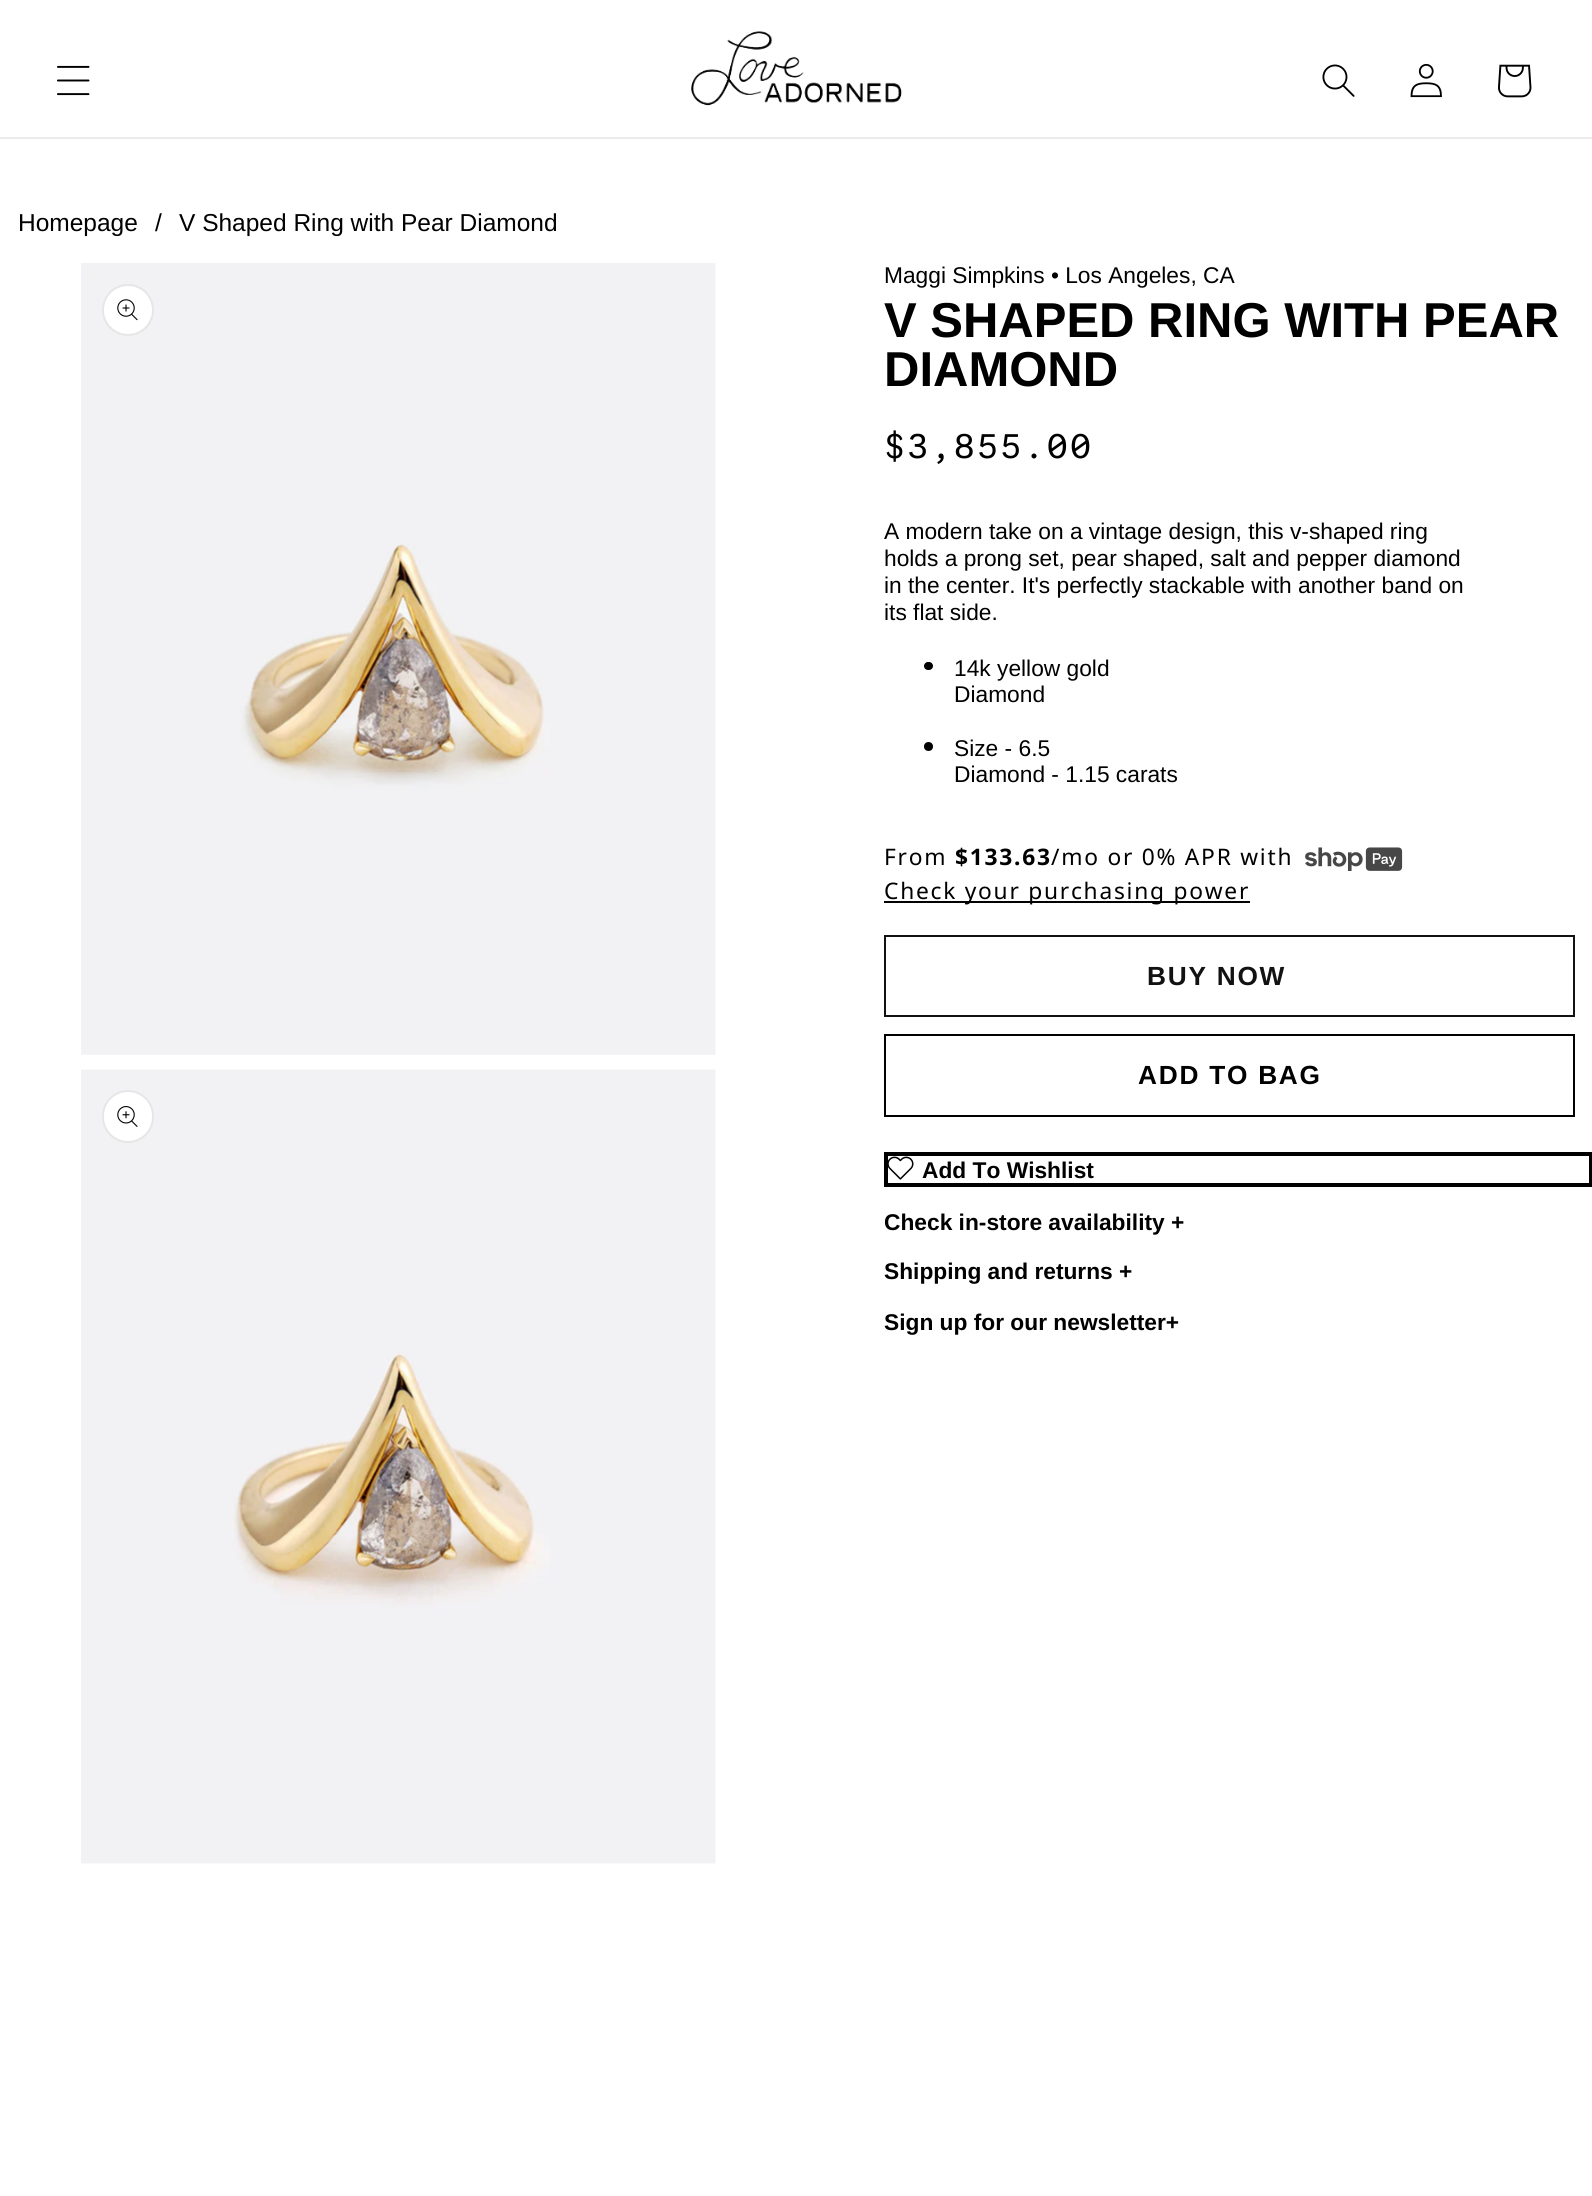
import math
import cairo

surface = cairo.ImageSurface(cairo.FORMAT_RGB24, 1592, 2196)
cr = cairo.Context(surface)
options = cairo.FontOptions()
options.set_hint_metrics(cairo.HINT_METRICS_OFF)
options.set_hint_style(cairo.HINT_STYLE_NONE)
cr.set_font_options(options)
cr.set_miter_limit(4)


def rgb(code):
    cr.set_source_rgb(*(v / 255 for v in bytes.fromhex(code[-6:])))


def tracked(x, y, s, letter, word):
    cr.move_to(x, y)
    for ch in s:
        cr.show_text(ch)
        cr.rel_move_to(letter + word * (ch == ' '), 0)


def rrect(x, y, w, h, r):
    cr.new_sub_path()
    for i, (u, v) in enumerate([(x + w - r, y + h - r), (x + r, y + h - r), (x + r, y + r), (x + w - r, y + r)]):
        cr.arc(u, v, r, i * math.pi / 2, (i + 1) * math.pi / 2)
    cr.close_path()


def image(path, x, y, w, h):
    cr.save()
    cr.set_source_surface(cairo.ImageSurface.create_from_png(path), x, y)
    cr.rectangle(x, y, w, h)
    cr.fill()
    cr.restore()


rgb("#ffffff")
cr.paint()
rgb("#ebebeb")
cr.rectangle(0, 137, 1592, 2)
cr.fill()
image("img/1.png", 57, 65, 33, 31)
image("img/2.png", 691, 31, 211, 75)
image("img/3.png", 1322, 64, 33, 33)
image("img/4.png", 1410, 63, 32, 35)
image("img/5.png", 1498, 64, 34, 34)
image("img/6.png", 81, 263, 635, 792)
rgb("#ffffff")
cr.arc(128, 310, 26, 0, 2 * math.pi)
cr.fill()
cr.arc(128, 310, 25, 0, 2 * math.pi)
cr.set_source_rgba(0, 0, 0, 0.1)
cr.stroke()
image("img/7.png", 117, 299, 21, 22)
image("img/8.png", 81, 1069, 635, 795)
rgb("#ffffff")
rrect(102, 1090, 52, 53, 26)
cr.fill()
rrect(103, 1091, 50, 51, 25)
cr.set_source_rgba(0, 0, 0, 0.1)
cr.stroke()
image("img/9.png", 117, 1106, 21, 21)
rgb("#000000")
rrect(924, 662, 9, 8, 4)
cr.fill()
cr.arc(928.5, 746.5, 4.5, 0, 2 * math.pi)
cr.fill()
image("img/10.png", 1305, 847, 98, 24)
cr.rectangle(884, 901, 366, 2)
cr.fill()
cr.rectangle(885, 936, 689, 80)
rgb("#121212")
cr.stroke()
cr.rectangle(885, 1035, 689, 81)
rgb("#000000")
cr.stroke()
cr.rectangle(886, 1154, 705, 31)
cr.set_line_width(4)
cr.stroke()
image("img/11.png", 888, 1156, 26, 24)
cr.select_font_face("Liberation Sans")
cr.set_font_size(24.5)
for x, y, s in [
    (18, 231, "Homepage"),
    (155, 231, "/"),
    (179, 231, "V Shaped Ring with Pear Diamond"),
]:
    cr.move_to(x, y)
    cr.show_text(s)
cr.set_font_size(22.75)
cr.move_to(884, 283)
cr.show_text("Maggi Simpkins • Los Angeles, CA")
cr.select_font_face("Liberation Sans", cairo.FONT_SLANT_NORMAL, cairo.FONT_WEIGHT_BOLD)
cr.set_font_size(49)
cr.move_to(884, 337)
cr.show_text("V SHAPED RING WITH PEAR")
cr.move_to(884, 386)
cr.show_text("DIAMOND")
cr.select_font_face("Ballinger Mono")
cr.set_font_size(35)
tracked(884, 458, "$3,855.00", 2.25, 0)
cr.select_font_face("Liberation Sans")
cr.set_font_size(22.75)
for x, y, s in [
    (884, 539, "A modern take on a vintage design, this v-shaped ring"),
    (884, 566, "holds a prong set, pear shaped, salt and pepper diamond"),
    (884, 593, "in the center. It's perfectly stackable with another band on"),
    (884, 620, "its flat side."),
    (954, 676, "14k yellow gold"),
    (954, 702, "Diamond"),
    (954, 756, "Size - 6.5"),
    (954, 782, "Diamond - 1.15 carats"),
]:
    cr.move_to(x, y)
    cr.show_text(s)
cr.select_font_face("Noto Sans")
tracked(884, 865, "From", 1.75, 0)
cr.select_font_face("Noto Sans", cairo.FONT_SLANT_NORMAL, cairo.FONT_WEIGHT_BOLD)
tracked(955, 865, "$133.63", 1.75, 0)
cr.select_font_face("Noto Sans")
tracked(1051, 865, "/mo or 0% APR with", 1.75, 0)
tracked(884, 899, "Check your purchasing power", 1.75, 0)
cr.select_font_face("Liberation Sans", cairo.FONT_SLANT_NORMAL, cairo.FONT_WEIGHT_BOLD)
cr.set_font_size(26.25)
rgb("#121212")
tracked(1147, 985, "BUY NOW", 1.75, 0)
rgb("#000000")
tracked(1138, 1084, "ADD TO BAG", 1.75, 0)
cr.set_font_size(22.75)
for x, y, s in [
    (922, 1178, "Add To Wishlist"),
    (884, 1230, "Check in-store availability +"),
    (884, 1279, "Shipping and returns +"),
    (884, 1330, "Sign up for our newsletter+"),
]:
    cr.move_to(x, y)
    cr.show_text(s)
surface.write_to_png("page.png")
